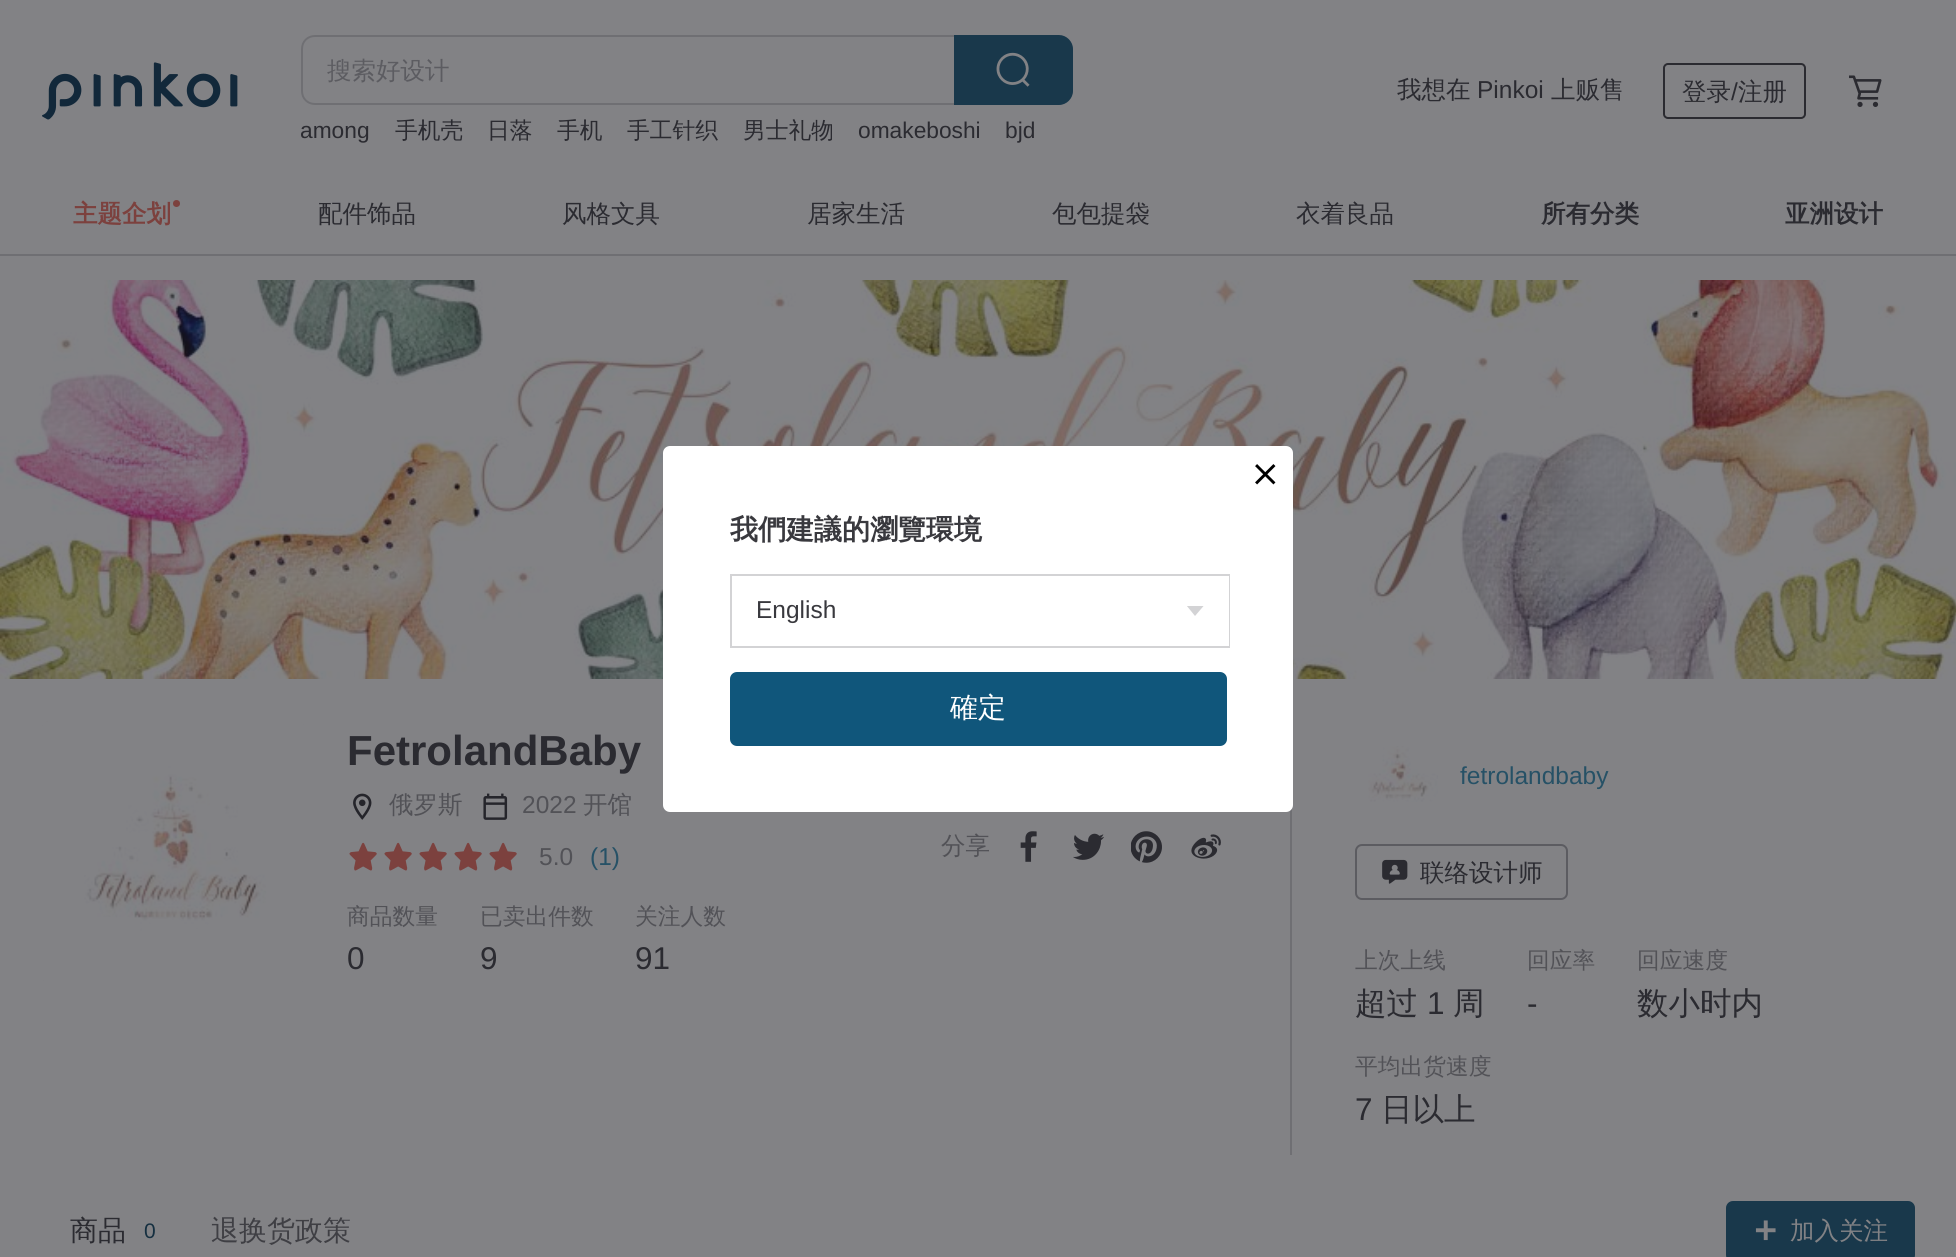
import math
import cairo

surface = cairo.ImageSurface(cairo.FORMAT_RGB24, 1956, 1257)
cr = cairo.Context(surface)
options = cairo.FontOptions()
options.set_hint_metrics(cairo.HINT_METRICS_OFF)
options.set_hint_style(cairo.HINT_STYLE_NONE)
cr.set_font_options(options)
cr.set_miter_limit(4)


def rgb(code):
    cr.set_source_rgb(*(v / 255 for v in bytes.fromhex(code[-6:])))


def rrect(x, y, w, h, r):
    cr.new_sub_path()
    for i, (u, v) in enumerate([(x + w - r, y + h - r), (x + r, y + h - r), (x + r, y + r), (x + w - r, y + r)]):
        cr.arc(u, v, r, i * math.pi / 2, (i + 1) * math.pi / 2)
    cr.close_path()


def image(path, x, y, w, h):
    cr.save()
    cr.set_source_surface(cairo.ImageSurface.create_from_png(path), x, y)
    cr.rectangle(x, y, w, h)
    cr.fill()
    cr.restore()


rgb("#828285")
cr.paint()
image("img/1.png", 42, 62, 196, 58)
rgb("#6f6f73")
cr.set_fill_rule(cairo.FILL_RULE_EVEN_ODD)
cr.new_path()
cr.move_to(315, 35)
cr.line_to(954, 35)
cr.line_to(954, 105)
cr.line_to(315, 105)
cr.curve_to(307, 105, 301, 99, 301, 91)
cr.line_to(301, 49)
cr.curve_to(301, 41, 307, 35, 315, 35)
cr.close_path()
cr.move_to(315, 37)
cr.line_to(954, 37)
cr.line_to(954, 103)
cr.line_to(315, 103)
cr.curve_to(308, 103, 303, 98, 303, 91)
cr.line_to(303, 49)
cr.curve_to(303, 42, 308, 37, 315, 37)
cr.close_path()
cr.fill()
rgb("#19384b")
cr.new_path()
cr.move_to(954, 35)
cr.line_to(1059, 35)
cr.curve_to(1066.5, 35, 1073, 41.5, 1073, 49)
cr.line_to(1073, 91)
cr.curve_to(1073, 98.5, 1066.5, 105, 1059, 105)
cr.line_to(954, 105)
cr.close_path()
cr.fill()
image("img/2.png", 996, 52, 34, 35)
rrect(1664, 64, 141, 54, 4)
rgb("#2b2b31")
cr.stroke()
image("img/3.png", 1849, 75, 33, 32)
rgb("#6f6f73")
cr.rectangle(0, 254, 1956, 2)
cr.fill()
rgb("#7c413e")
cr.arc(176.5, 203.5, 3.5, 0, 2 * math.pi)
cr.fill()
image("img/5.png", 0, 280, 1956, 399)
rgb("#6f6f73")
cr.rectangle(1290, 808, 2, 347)
cr.fill()
rgb("#ffffff")
rrect(663, 446, 630, 366, 7)
cr.fill()
image("img/4.png", 1255, 464, 21, 21)
cr.rectangle(731, 575, 498, 72)
rgb("#d3d3d5")
cr.stroke()
rgb("#ffffff")
cr.rectangle(1228, 576, 1, 70)
cr.fill()
cr.save()
cr.set_fill_rule(cairo.FILL_RULE_WINDING)
cr.rectangle(1187, 606, 17, 10)
cr.clip()
rgb("#d3d3d5")
cr.set_fill_rule(cairo.FILL_RULE_EVEN_ODD)
cr.new_path()
cr.move_to(1186.5, 605.5)
cr.line_to(1204, 605.5)
cr.line_to(1195, 616)
cr.close_path()
cr.fill()
cr.restore()
rgb("#10567b")
rrect(731, 673, 495, 72, 6)
cr.fill_preserve()
cr.stroke()
image("img/6.png", 42, 721, 262, 262)
image("img/7.png", 42, 721, 262, 262)
image("img/8.png", 353, 793, 19, 27)
image("img/9.png", 483, 793, 25, 27)
image("img/10.png", 349, 842, 28, 29)
image("img/10.png", 384, 842, 28, 29)
image("img/10.png", 419, 842, 28, 29)
image("img/10.png", 454, 842, 28, 29)
image("img/10.png", 489, 842, 28, 29)
image("img/11.png", 1020, 831, 17, 31)
image("img/12.png", 1073, 833, 31, 27)
image("img/13.png", 1131, 831, 31, 32)
image("img/14.png", 1191, 834, 30, 25)
image("img/15.png", 1368, 746, 70, 56)
rrect(1356, 845, 211, 54, 6)
rgb("#5c5c61")
cr.stroke()
image("img/16.png", 1382, 859, 26, 25)
rgb("#19384b")
rrect(1727, 1202, 187, 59, 6)
cr.fill_preserve()
cr.stroke()
image("img/17.png", 1755, 1220, 21, 21)
cr.select_font_face("WenQuanYi Zen Hei Medium")
cr.set_font_size(24.5)
rgb("#5c5c61")
cr.move_to(327, 79)
cr.show_text("搜索好设计")
cr.select_font_face("Liberation Sans")
cr.set_font_size(22.75)
rgb("#2b2b31")
cr.move_to(300, 138)
cr.show_text("among")
cr.select_font_face("WenQuanYi Zen Hei Medium")
for x, y, s in [
    (395, 138, "手机壳"),
    (487, 138, "日落"),
    (557, 138, "手机"),
    (627, 138, "手工针织"),
    (743, 138, "男士礼物"),
]:
    cr.move_to(x, y)
    cr.show_text(s)
cr.select_font_face("Liberation Sans")
cr.move_to(858, 138)
cr.show_text("omakeboshi")
cr.move_to(1005, 138)
cr.show_text("bjd")
cr.select_font_face("WenQuanYi Zen Hei Medium")
cr.set_font_size(24.5)
cr.move_to(1397, 98)
cr.show_text("我想在")
cr.select_font_face("Liberation Sans")
cr.move_to(1477, 98)
cr.show_text("Pinkoi")
cr.select_font_face("WenQuanYi Zen Hei Medium")
cr.move_to(1551, 98)
cr.show_text("上贩售")
cr.move_to(1682, 100)
cr.show_text("登录")
cr.select_font_face("Liberation Sans")
cr.move_to(1731, 100)
cr.show_text("/")
cr.select_font_face("WenQuanYi Zen Hei Medium")
cr.move_to(1738, 100)
cr.show_text("注册")
cr.select_font_face("WenQuanYi Zen Hei", cairo.FONT_SLANT_NORMAL, cairo.FONT_WEIGHT_BOLD)
rgb("#7c413e")
cr.move_to(73, 222)
cr.show_text("主题企划")
cr.select_font_face("WenQuanYi Zen Hei Medium")
rgb("#2b2b31")
for x, y, s in [
    (318, 222, "配件饰品"),
    (562, 222, "风格文具"),
    (807, 222, "居家生活"),
    (1052, 222, "包包提袋"),
    (1296, 222, "衣着良品"),
]:
    cr.move_to(x, y)
    cr.show_text(s)
cr.select_font_face("WenQuanYi Zen Hei", cairo.FONT_SLANT_NORMAL, cairo.FONT_WEIGHT_BOLD)
cr.move_to(1541, 222)
cr.show_text("所有分类")
cr.move_to(1785, 222)
cr.show_text("亚洲设计")
cr.set_font_size(28)
rgb("#39393e")
cr.move_to(730, 539)
cr.show_text("我們建議的瀏覽環境")
cr.select_font_face("Liberation Sans")
cr.set_font_size(24.5)
cr.move_to(756, 618)
cr.show_text("English")
cr.select_font_face("WenQuanYi Zen Hei Medium")
cr.set_font_size(28)
rgb("#ffffff")
cr.move_to(950, 717)
cr.show_text("確定")
cr.select_font_face("Liberation Sans", cairo.FONT_SLANT_NORMAL, cairo.FONT_WEIGHT_BOLD)
cr.set_font_size(42)
rgb("#2b2b31")
cr.move_to(347, 765)
cr.show_text("FetrolandBaby")
cr.select_font_face("WenQuanYi Zen Hei Medium")
cr.set_font_size(24.5)
rgb("#525257")
cr.move_to(389, 813)
cr.show_text("俄罗斯")
cr.select_font_face("Liberation Sans")
cr.move_to(522, 813)
cr.show_text("2022")
cr.select_font_face("WenQuanYi Zen Hei Medium")
cr.move_to(583, 813)
cr.show_text("开馆")
cr.select_font_face("Liberation Sans")
cr.move_to(539, 865)
cr.show_text("5.0")
rgb("#265166")
cr.move_to(590, 865)
cr.show_text("(1)")
cr.select_font_face("WenQuanYi Zen Hei Medium")
cr.set_font_size(22.75)
rgb("#525257")
cr.move_to(347, 924)
cr.show_text("商品数量")
cr.select_font_face("Liberation Sans")
cr.set_font_size(31.5)
rgb("#2b2b31")
cr.move_to(347, 969)
cr.show_text("0")
cr.select_font_face("WenQuanYi Zen Hei Medium")
cr.set_font_size(22.75)
rgb("#525257")
cr.move_to(480, 924)
cr.show_text("已卖出件数")
cr.select_font_face("Liberation Sans")
cr.set_font_size(31.5)
rgb("#2b2b31")
cr.move_to(480, 969)
cr.show_text("9")
cr.select_font_face("WenQuanYi Zen Hei Medium")
cr.set_font_size(22.75)
rgb("#525257")
cr.move_to(635, 924)
cr.show_text("关注人数")
cr.select_font_face("Liberation Sans")
cr.set_font_size(31.5)
rgb("#2b2b31")
cr.move_to(635, 969)
cr.show_text("91")
cr.select_font_face("WenQuanYi Zen Hei Medium")
cr.set_font_size(24.5)
rgb("#525257")
cr.move_to(941, 854)
cr.show_text("分享")
cr.select_font_face("Liberation Sans")
rgb("#265166")
cr.move_to(1460, 784)
cr.show_text("fetrolandbaby")
cr.select_font_face("WenQuanYi Zen Hei Medium")
rgb("#2b2b31")
cr.move_to(1420, 881)
cr.show_text("联络设计师")
cr.set_font_size(22.75)
rgb("#525257")
cr.move_to(1355, 968)
cr.show_text("上次上线")
cr.set_font_size(31.5)
rgb("#2b2b31")
cr.move_to(1355, 1014)
cr.show_text("超过")
cr.select_font_face("Liberation Sans")
cr.move_to(1427, 1014)
cr.show_text("1")
cr.select_font_face("WenQuanYi Zen Hei Medium")
cr.move_to(1453, 1014)
cr.show_text("周")
cr.set_font_size(22.75)
rgb("#525257")
cr.move_to(1527, 968)
cr.show_text("回应率")
cr.select_font_face("Liberation Sans")
cr.set_font_size(31.5)
rgb("#2b2b31")
cr.move_to(1527, 1014)
cr.show_text("-")
cr.select_font_face("WenQuanYi Zen Hei Medium")
cr.set_font_size(22.75)
rgb("#525257")
cr.move_to(1637, 968)
cr.show_text("回应速度")
cr.set_font_size(31.5)
rgb("#2b2b31")
cr.move_to(1637, 1014)
cr.show_text("数小时内")
cr.set_font_size(22.75)
rgb("#525257")
cr.move_to(1355, 1074)
cr.show_text("平均出货速度")
cr.select_font_face("Liberation Sans")
cr.set_font_size(31.5)
rgb("#2b2b31")
cr.move_to(1355, 1120)
cr.show_text("7")
cr.select_font_face("WenQuanYi Zen Hei Medium")
cr.move_to(1381, 1120)
cr.show_text("日以上")
cr.set_font_size(28)
cr.move_to(70, 1240)
cr.show_text("商品")
cr.select_font_face("Liberation Sans")
cr.set_font_size(21)
rgb("#152f40")
cr.move_to(144, 1238)
cr.show_text("0")
cr.select_font_face("WenQuanYi Zen Hei Medium")
cr.set_font_size(28)
rgb("#3f3f44")
cr.move_to(211, 1240)
cr.show_text("退换货政策")
cr.set_font_size(24.5)
rgb("#828285")
cr.move_to(1790, 1239)
cr.show_text("加入关注")
surface.write_to_png("page.png")
